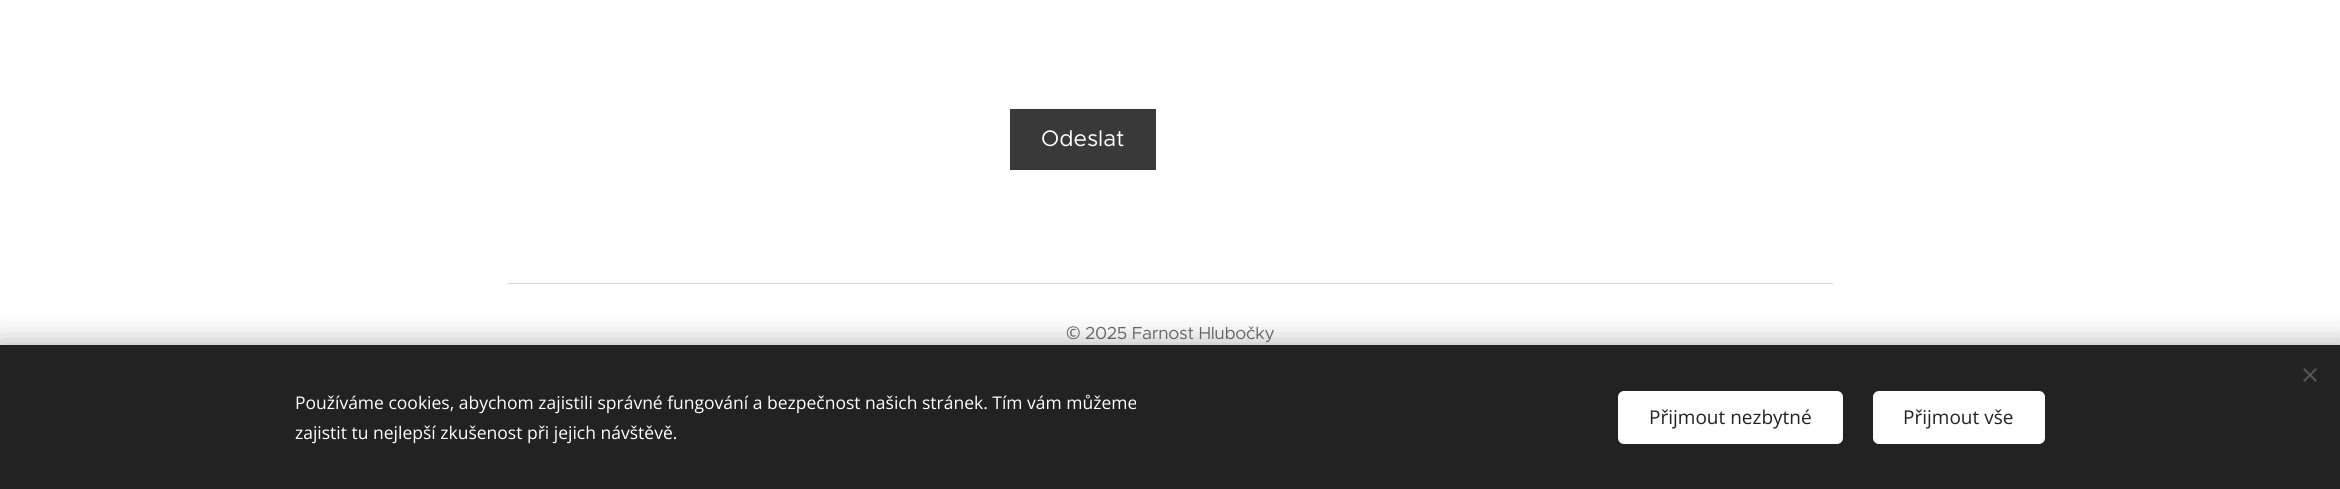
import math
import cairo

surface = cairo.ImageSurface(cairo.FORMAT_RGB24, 2340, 489)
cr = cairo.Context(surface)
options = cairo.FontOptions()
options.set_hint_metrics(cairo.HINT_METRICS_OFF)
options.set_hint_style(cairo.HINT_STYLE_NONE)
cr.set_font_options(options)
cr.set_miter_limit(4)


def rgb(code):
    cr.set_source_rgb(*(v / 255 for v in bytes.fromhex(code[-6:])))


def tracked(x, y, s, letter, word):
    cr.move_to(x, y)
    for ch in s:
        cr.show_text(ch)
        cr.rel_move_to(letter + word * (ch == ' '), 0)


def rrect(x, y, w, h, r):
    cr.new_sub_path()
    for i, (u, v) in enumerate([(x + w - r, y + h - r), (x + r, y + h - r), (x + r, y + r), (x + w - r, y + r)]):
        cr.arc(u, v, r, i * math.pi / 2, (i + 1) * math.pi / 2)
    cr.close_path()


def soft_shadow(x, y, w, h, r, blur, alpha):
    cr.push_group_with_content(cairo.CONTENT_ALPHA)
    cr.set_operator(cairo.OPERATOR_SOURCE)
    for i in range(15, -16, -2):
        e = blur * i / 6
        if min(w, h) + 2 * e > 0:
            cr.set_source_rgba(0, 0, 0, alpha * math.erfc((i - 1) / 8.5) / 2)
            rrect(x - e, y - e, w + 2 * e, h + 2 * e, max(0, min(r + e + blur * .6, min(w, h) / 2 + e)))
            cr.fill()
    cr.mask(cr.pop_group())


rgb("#ffffff")
cr.paint()
rgb("#393939")
cr.rectangle(1010, 109, 146, 61)
cr.fill()
rgb("#d4d4d4")
cr.rectangle(508, 283, 1325, 1)
cr.fill()
rgb("#000000")
soft_shadow(0, 345, 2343, 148, 0, 15.5, 0.33)
rgb("#222222")
cr.rectangle(0, 345, 2340, 144)
cr.fill()
rgb("#555555")
cr.new_path()
cr.move_to(2303, 380.5)
cr.line_to(2315.5, 368)
cr.line_to(2317, 369.5)
cr.line_to(2304.5, 382)
cr.close_path()
cr.fill()
cr.new_path()
cr.move_to(2304.5, 368)
cr.line_to(2317, 380.5)
cr.line_to(2315.5, 382)
cr.line_to(2303, 369.5)
cr.close_path()
cr.fill()
rgb("#ffffff")
rrect(1618, 391, 225, 53, 6)
cr.fill()
rrect(1873, 391, 172, 53, 6)
cr.fill()
cr.select_font_face("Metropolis")
cr.set_font_size(22.5)
cr.move_to(1041, 146)
cr.show_text("Odeslat")
cr.select_font_face("Noto Sans")
cr.set_font_size(17.5)
rgb("#666666")
tracked(1066, 339, "©", -0.3, 0)
cr.select_font_face("Metropolis")
tracked(1085, 339, "2025 Farnost Hlubočky", -0.3, 0)
cr.select_font_face("Open Sans")
rgb("#ffffff")
cr.move_to(295, 409)
cr.show_text("Používáme cookies, abychom zajistili správné fungování a bezpečnost našich stránek. Tím vám můžeme")
cr.move_to(295, 439)
cr.show_text("zajistit tu nejlepší zkušenost při jejich návštěvě.")
cr.set_font_size(19)
rgb("#222222")
cr.move_to(1649, 424)
cr.show_text("Přijmout nezbytné")
cr.move_to(1903, 424)
cr.show_text("Přijmout vše")
surface.write_to_png("page.png")
